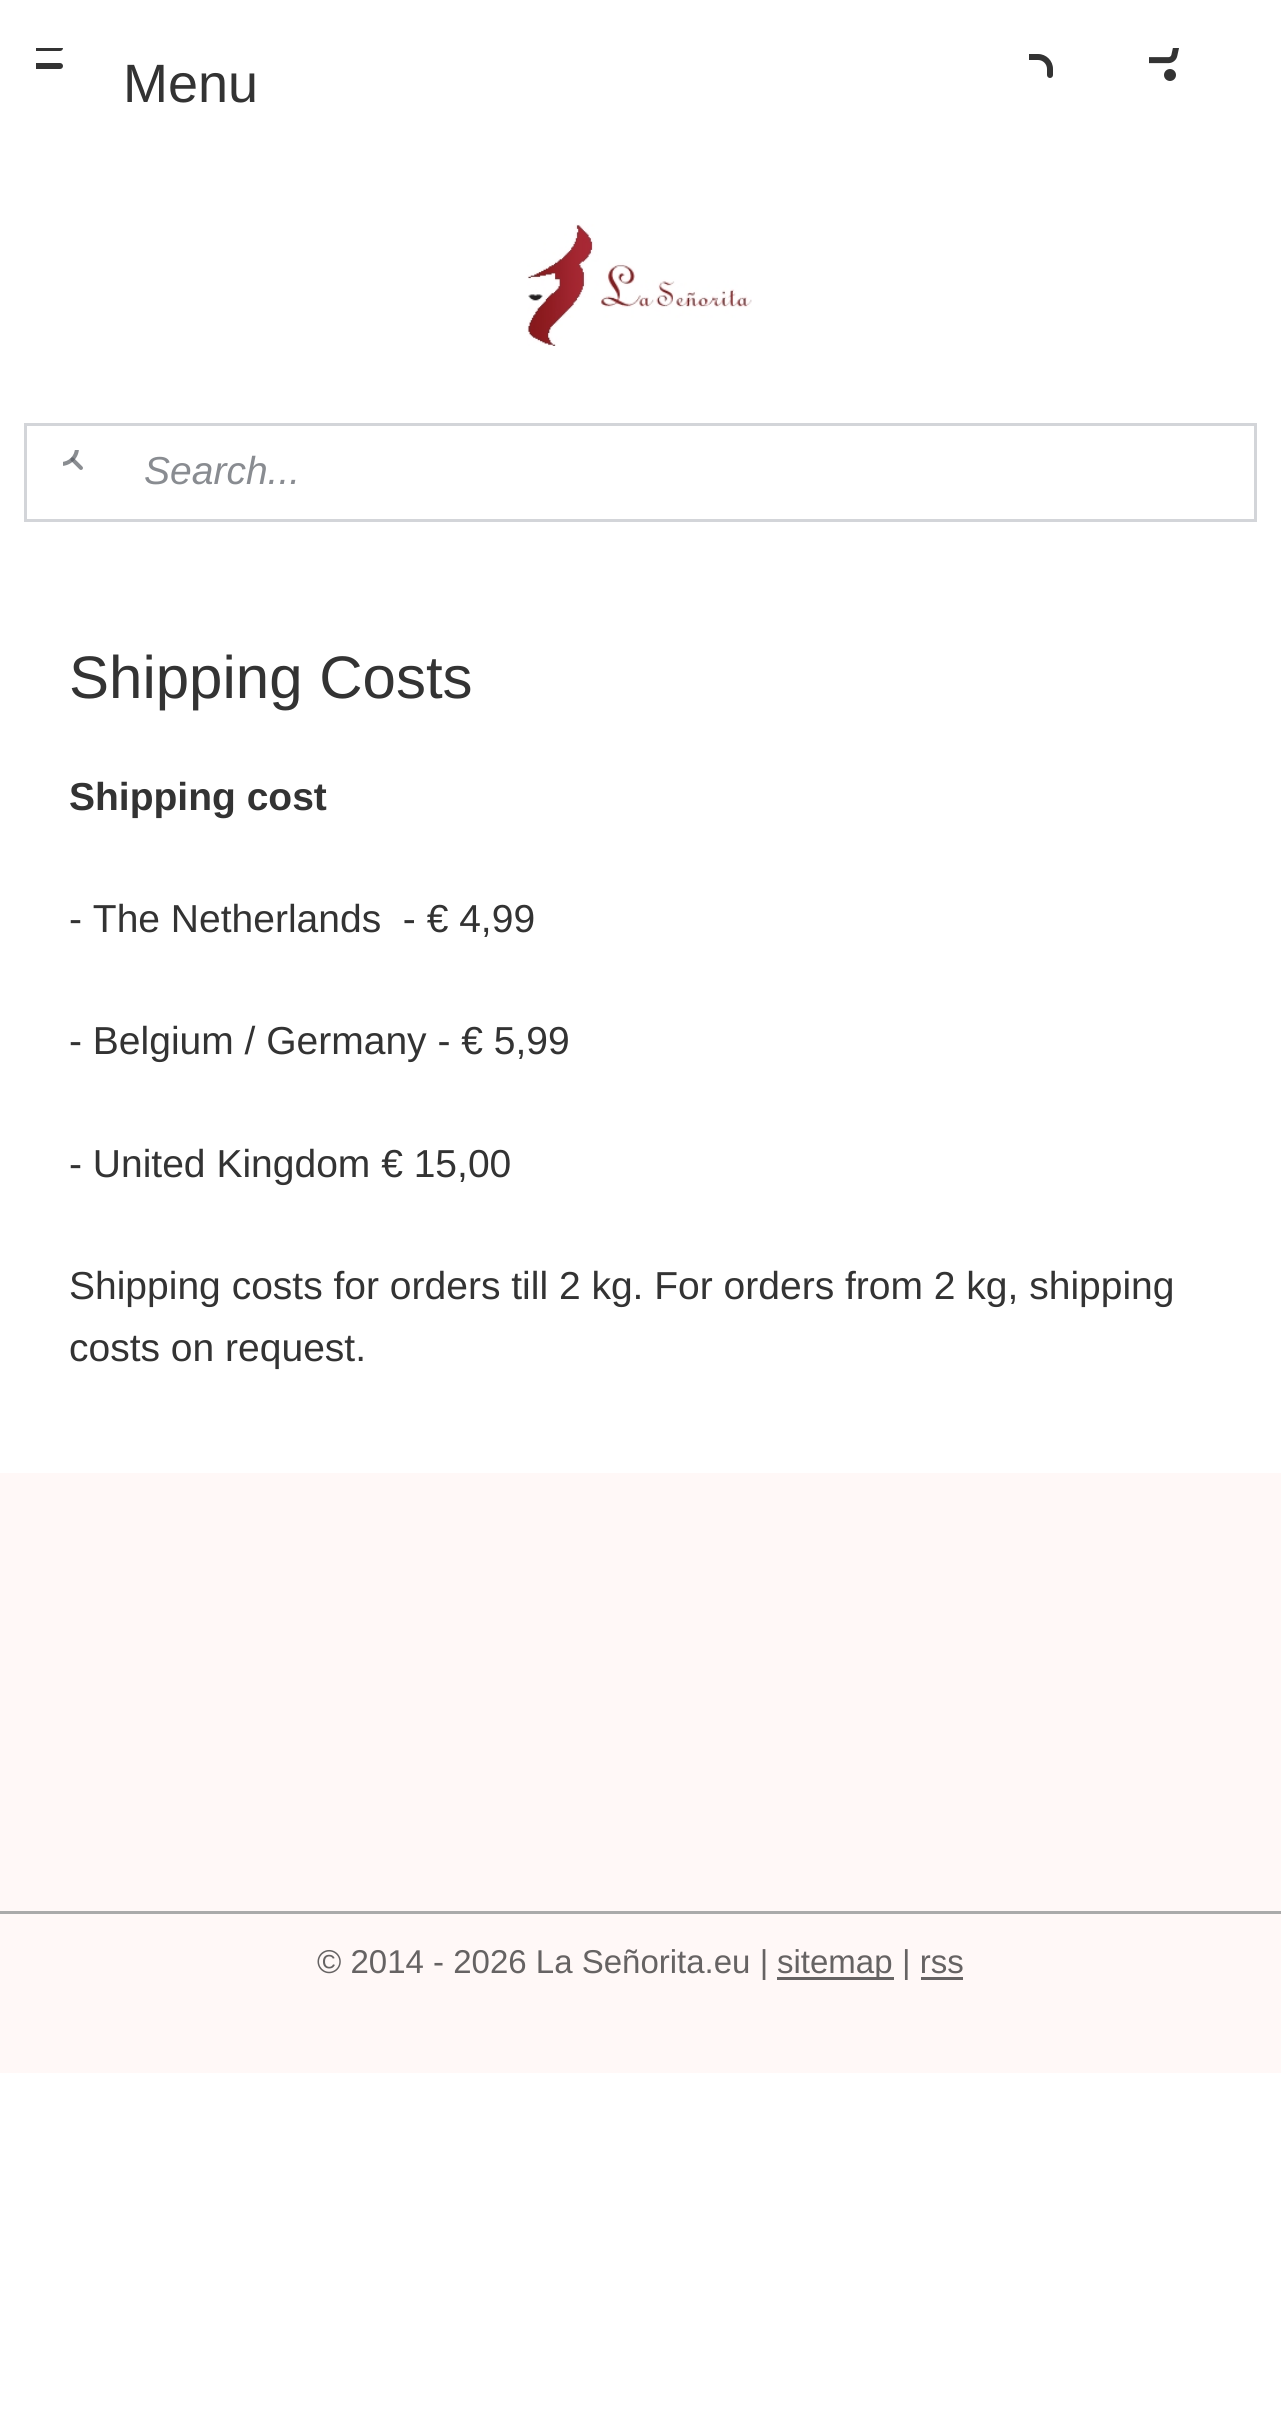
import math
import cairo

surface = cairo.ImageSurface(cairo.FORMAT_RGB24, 1281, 2432)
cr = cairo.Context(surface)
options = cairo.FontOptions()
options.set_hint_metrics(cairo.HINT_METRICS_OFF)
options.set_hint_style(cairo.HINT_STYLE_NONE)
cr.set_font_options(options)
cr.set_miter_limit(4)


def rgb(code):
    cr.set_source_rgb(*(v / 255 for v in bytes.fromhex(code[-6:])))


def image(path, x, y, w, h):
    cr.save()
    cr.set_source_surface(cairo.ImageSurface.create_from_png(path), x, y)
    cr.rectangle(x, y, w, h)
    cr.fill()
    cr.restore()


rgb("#ffffff")
cr.paint()
image("img/1.png", 36, 48, 27, 21)
image("img/2.png", 1029, 54, 24, 24)
image("img/3.png", 1149, 48, 30, 33)
image("img/4.png", 527, 224, 225, 122)
cr.rectangle(25.5, 424.5, 1230, 96)
rgb("#d3d5d9")
cr.set_line_width(3)
cr.stroke()
image("img/5.png", 63, 450, 20, 20)
for x, y, w, h, color in [
    (0, 1473, 1281, 438, "#fff8f7"),
    (0, 1914, 1281, 159, "#fff8f7"),
    (0, 1911, 1281, 3, "#aaaaaa"),
    (777, 1977, 117, 3, "#666363"),
    (921, 1977, 42, 3, "#666363"),
]:
    rgb(color)
    cr.rectangle(x, y, w, h)
    cr.fill()
cr.select_font_face("Liberation Sans")
cr.set_font_size(54)
rgb("#333333")
cr.move_to(123, 102)
cr.show_text("Menu")
cr.select_font_face("Liberation Sans", cairo.FONT_SLANT_ITALIC)
cr.set_font_size(39)
rgb("#898c91")
cr.move_to(144, 484)
cr.show_text("Search...")
cr.select_font_face("Liberation Sans")
cr.set_font_size(60)
rgb("#333333")
cr.move_to(69, 698)
cr.show_text("Shipping Costs")
cr.select_font_face("Liberation Sans", cairo.FONT_SLANT_NORMAL, cairo.FONT_WEIGHT_BOLD)
cr.set_font_size(39)
cr.move_to(69, 810)
cr.show_text("Shipping cost")
cr.select_font_face("Liberation Sans")
for x, y, s in [
    (69, 932, "- The Netherlands  - € 4,99"),
    (69, 1054, "- Belgium / Germany - € 5,99"),
    (69, 1177, "- United Kingdom € 15,00"),
    (69, 1299, "Shipping costs for orders till 2 kg. For orders from 2 kg, shipping"),
    (69, 1361, "costs on request."),
]:
    cr.move_to(x, y)
    cr.show_text(s)
cr.set_font_size(33)
rgb("#666363")
for x, y, s in [
    (317, 1973, "© 2014 - 2026 La Señorita.eu |"),
    (777, 1973, "sitemap"),
    (902, 1973, "| rss"),
]:
    cr.move_to(x, y)
    cr.show_text(s)
surface.write_to_png("page.png")
